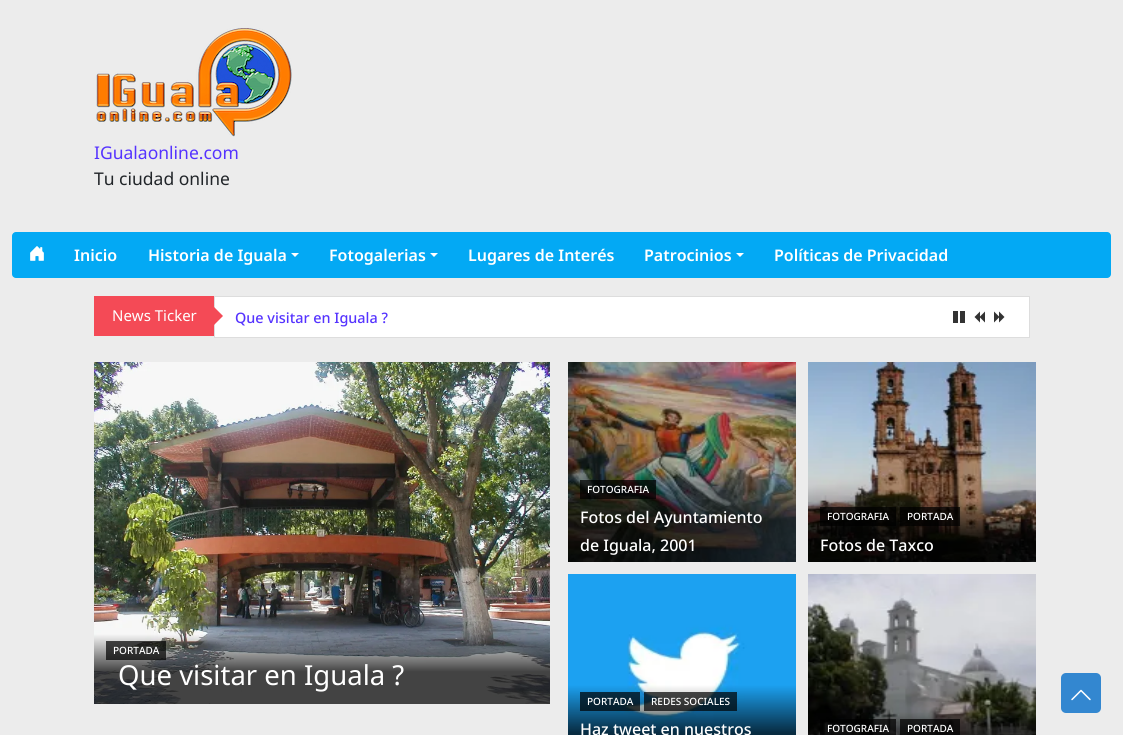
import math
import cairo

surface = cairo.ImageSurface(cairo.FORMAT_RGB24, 1123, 735)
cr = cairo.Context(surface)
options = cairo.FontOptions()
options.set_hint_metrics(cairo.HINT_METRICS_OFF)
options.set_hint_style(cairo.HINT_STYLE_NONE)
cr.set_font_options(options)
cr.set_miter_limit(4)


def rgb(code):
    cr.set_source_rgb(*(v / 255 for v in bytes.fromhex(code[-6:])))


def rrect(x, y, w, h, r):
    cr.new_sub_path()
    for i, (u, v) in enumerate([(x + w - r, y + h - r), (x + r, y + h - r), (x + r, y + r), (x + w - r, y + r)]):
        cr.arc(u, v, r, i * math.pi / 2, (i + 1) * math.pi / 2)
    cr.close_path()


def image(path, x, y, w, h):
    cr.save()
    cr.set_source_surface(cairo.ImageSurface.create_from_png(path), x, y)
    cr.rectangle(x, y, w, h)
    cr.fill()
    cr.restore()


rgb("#ececec")
cr.paint()
image("img/1.png", 96, 28, 196, 109)
rgb("#03a9f4")
rrect(12, 232, 1099, 46, 4)
cr.fill()
image("img/2.png", 30, 246, 14, 15)
rgb("#ffffff")
cr.new_path()
cr.move_to(291, 253)
cr.line_to(299, 253)
cr.line_to(295, 257)
cr.close_path()
cr.fill()
cr.new_path()
cr.move_to(430, 253)
cr.line_to(438, 253)
cr.line_to(434, 257)
cr.close_path()
cr.fill()
cr.new_path()
cr.move_to(736, 253)
cr.line_to(744, 253)
cr.line_to(740, 257)
cr.close_path()
cr.fill()
rgb("#f44a56")
cr.rectangle(94, 296, 120, 40)
cr.fill()
rgb("#ffffff")
cr.rectangle(214.5, 296.5, 815, 41)
cr.fill_preserve()
rgb("#dddddd")
cr.set_line_width(1)
cr.stroke()
rgb("#f44a56")
cr.new_path()
cr.move_to(213, 326)
cr.line_to(213, 306)
cr.line_to(223, 316)
cr.close_path()
cr.fill()
image("img/3.png", 953, 311, 12, 12)
image("img/4.png", 974, 311, 11, 12)
image("img/5.png", 994, 311, 11, 12)
image("img/6.png", 94, 362, 456, 342)
cr.set_source_rgba(0, 0, 0, 0.7)
cr.rectangle(106, 641, 60, 19)
cr.fill()
image("img/7.png", 568, 362, 228, 200)
cr.rectangle(580, 480, 76, 19)
cr.fill()
image("img/8.png", 808, 362, 228, 200)
cr.rectangle(820, 507, 76, 19)
cr.fill()
cr.rectangle(900, 507, 60, 19)
cr.fill()
image("img/9.png", 568, 574, 228, 161)
cr.rectangle(580, 692, 60, 19)
cr.fill()
cr.rectangle(644, 692, 93, 19)
cr.fill()
image("img/10.png", 808, 574, 228, 161)
cr.rectangle(820, 719, 76, 16)
cr.fill()
cr.rectangle(900, 719, 60, 16)
cr.fill()
rgb("#3387d0")
rrect(1061, 673, 40, 40, 5)
cr.fill()
image("img/11.png", 1071, 689, 20, 12)
cr.select_font_face("Noto Sans")
cr.set_font_size(17.5)
rgb("#5533ff")
cr.move_to(94, 159)
cr.show_text("IGualaonline.com")
rgb("#212529")
cr.move_to(94, 185)
cr.show_text("Tu ciudad online")
cr.select_font_face("Noto Sans SemiBold")
cr.set_font_size(16)
rgb("#ffffff")
for x, y, s in [
    (74, 261, "Inicio"),
    (148, 261, "Historia de Iguala"),
    (329, 261, "Fotogalerias"),
    (468, 261, "Lugares de Interés"),
    (644, 261, "Patrocinios"),
    (774, 261, "Políticas de Privacidad"),
]:
    cr.move_to(x, y)
    cr.show_text(s)
cr.select_font_face("Noto Sans")
cr.set_font_size(15)
cr.move_to(112, 321)
cr.show_text("News Ticker")
cr.select_font_face("Noto Sans Medium")
cr.set_font_size(14.4)
rgb("#5533ff")
cr.move_to(235, 323)
cr.show_text("Que visitar en Iguala ?")
cr.set_font_size(10)
rgb("#ffffff")
cr.move_to(113, 654)
cr.show_text("PORTADA")
cr.select_font_face("Noto Sans")
cr.set_font_size(27.5)
cr.move_to(118, 685)
cr.show_text("Que visitar en Iguala ?")
cr.select_font_face("Noto Sans Medium")
cr.set_font_size(10)
cr.move_to(587, 493)
cr.show_text("FOTOGRAFIA")
cr.set_font_size(16)
cr.move_to(580, 523)
cr.show_text("Fotos del Ayuntamiento")
cr.move_to(580, 551)
cr.show_text("de Iguala, 2001")
cr.set_font_size(10)
cr.move_to(827, 520)
cr.show_text("FOTOGRAFIA")
cr.move_to(907, 520)
cr.show_text("PORTADA")
cr.set_font_size(16)
cr.move_to(820, 551)
cr.show_text("Fotos de Taxco")
cr.set_font_size(10)
cr.move_to(587, 705)
cr.show_text("PORTADA")
cr.move_to(651, 705)
cr.show_text("REDES SOCIALES")
cr.set_font_size(16)
cr.move_to(580, 735)
cr.show_text("Haz tweet en nuestros")
cr.set_font_size(10)
cr.move_to(827, 732)
cr.show_text("FOTOGRAFIA")
cr.move_to(907, 732)
cr.show_text("PORTADA")
surface.write_to_png("page.png")
